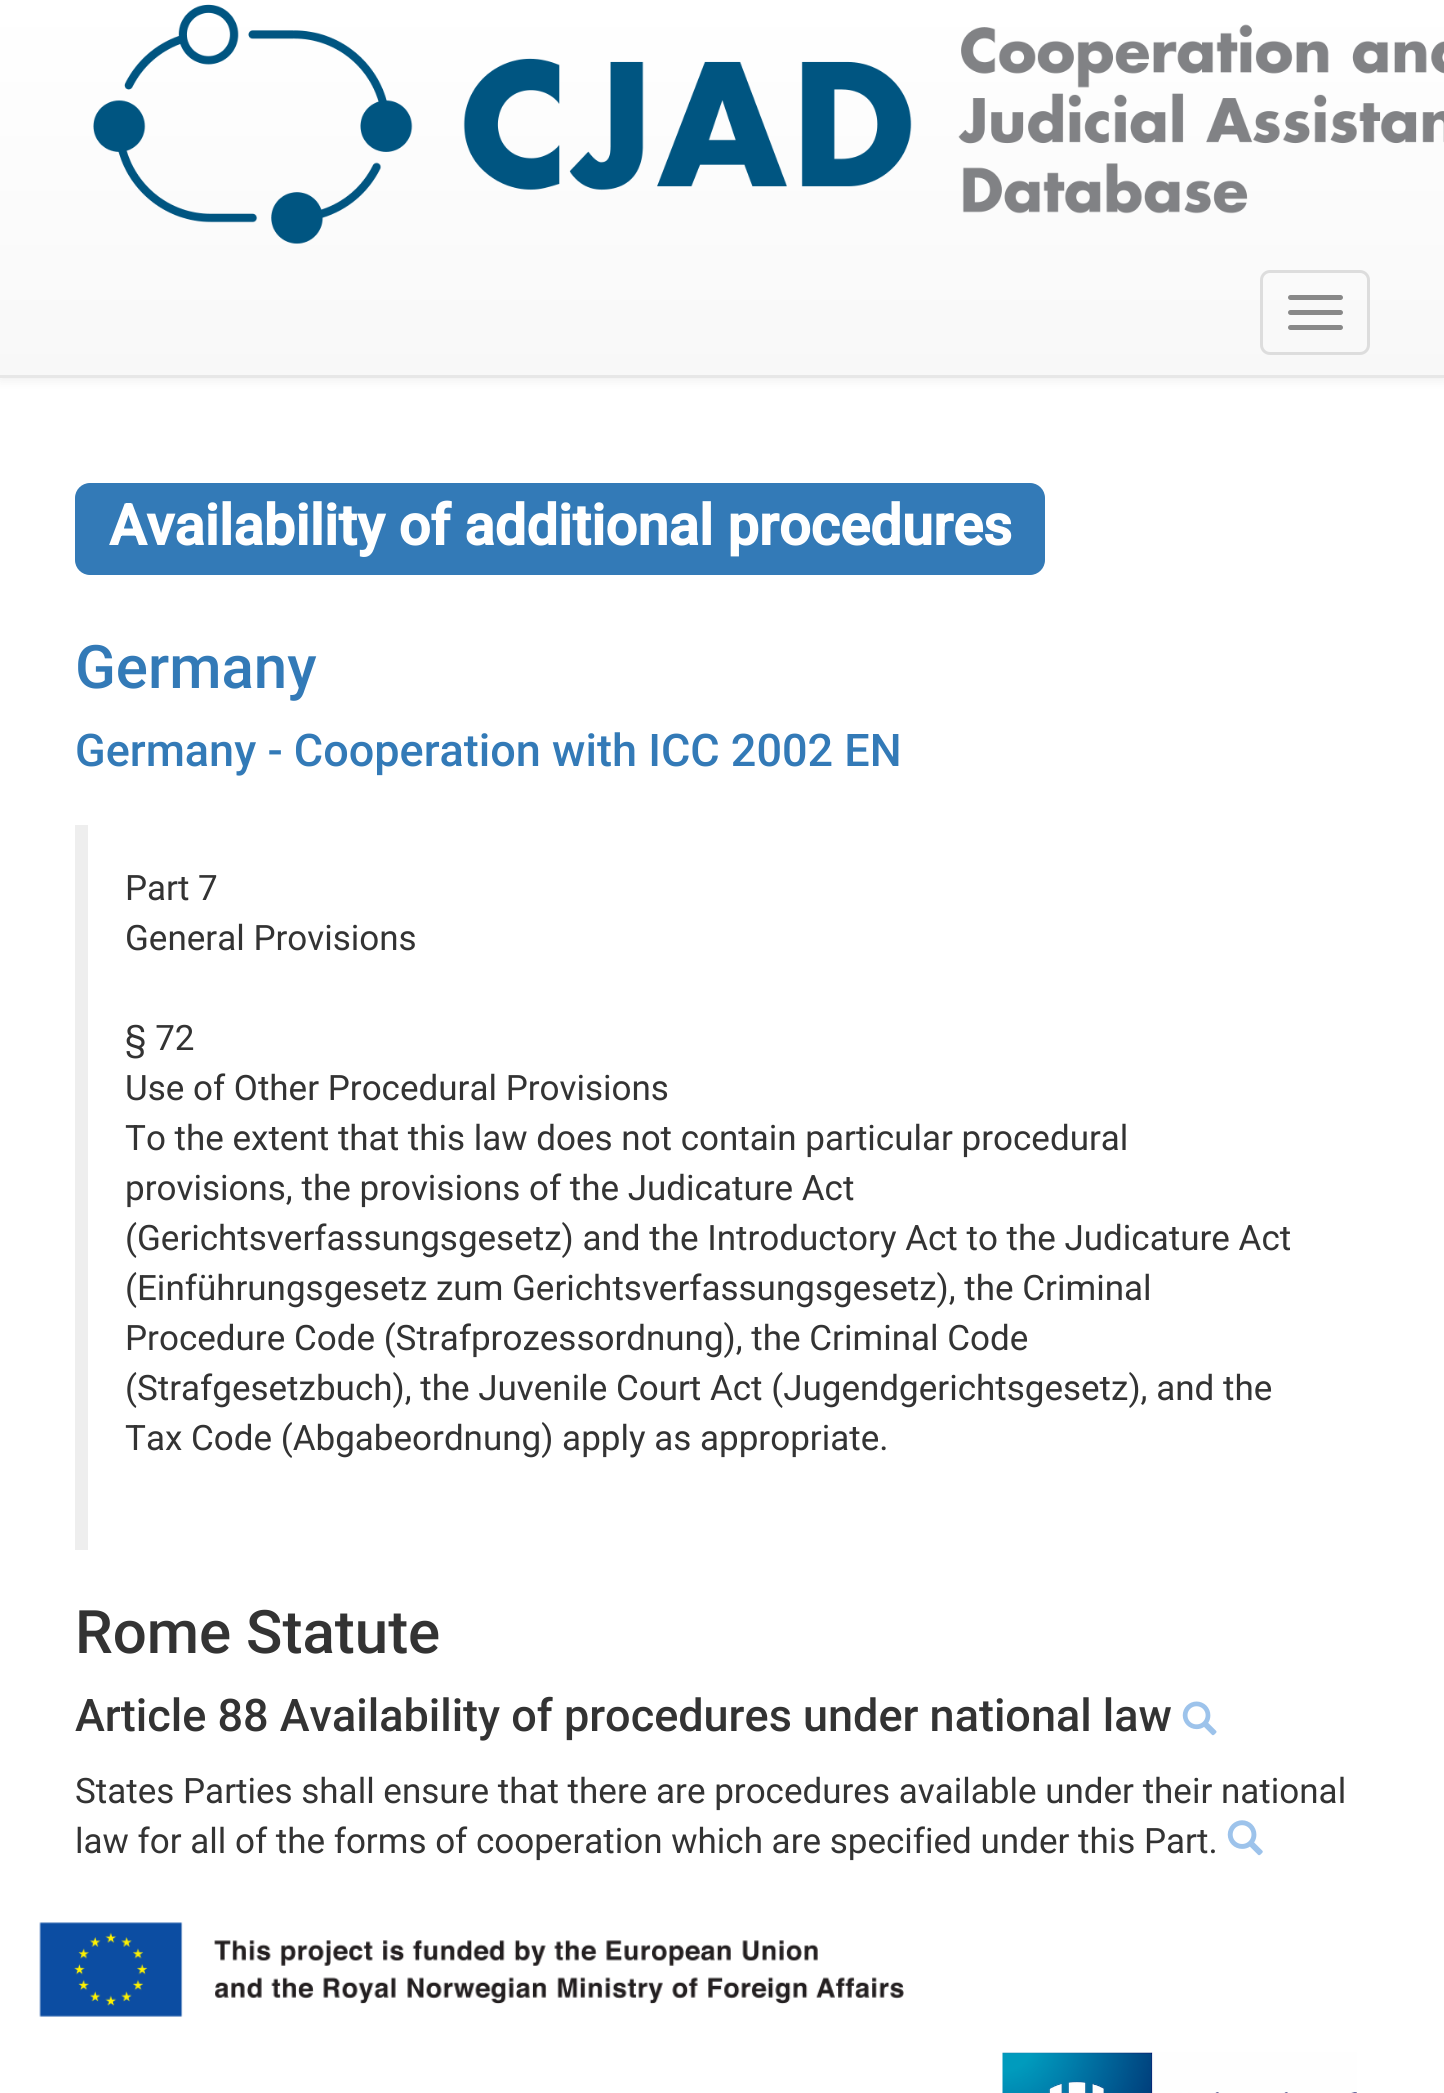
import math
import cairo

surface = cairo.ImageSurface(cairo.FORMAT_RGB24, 1444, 2093)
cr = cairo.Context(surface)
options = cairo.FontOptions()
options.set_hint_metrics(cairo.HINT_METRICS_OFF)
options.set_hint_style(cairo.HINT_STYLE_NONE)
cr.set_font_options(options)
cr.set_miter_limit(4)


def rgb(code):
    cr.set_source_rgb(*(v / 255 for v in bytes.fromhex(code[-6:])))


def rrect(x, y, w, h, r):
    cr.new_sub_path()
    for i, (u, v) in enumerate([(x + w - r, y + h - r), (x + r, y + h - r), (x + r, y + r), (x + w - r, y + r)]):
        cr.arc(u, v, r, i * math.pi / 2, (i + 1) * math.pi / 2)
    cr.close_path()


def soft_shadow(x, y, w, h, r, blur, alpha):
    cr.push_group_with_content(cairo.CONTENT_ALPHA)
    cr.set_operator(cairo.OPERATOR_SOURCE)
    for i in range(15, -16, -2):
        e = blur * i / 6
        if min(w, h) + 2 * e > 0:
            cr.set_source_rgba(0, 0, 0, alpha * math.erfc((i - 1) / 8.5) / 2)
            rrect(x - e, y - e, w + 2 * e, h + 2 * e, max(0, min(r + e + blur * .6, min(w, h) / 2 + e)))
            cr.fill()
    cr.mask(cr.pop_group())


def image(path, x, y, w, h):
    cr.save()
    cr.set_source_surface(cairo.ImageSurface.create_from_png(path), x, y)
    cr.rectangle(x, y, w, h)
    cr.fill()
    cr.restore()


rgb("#ffffff")
cr.paint()
rgb("#000000")
soft_shadow(0, 3, 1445, 377, 0, 6, 0.07)
gradient = cairo.LinearGradient(723, 0, 723, 375)
gradient.add_color_stop_rgba(0, 1, 1, 1, 1)
gradient.add_color_stop_rgba(1, 0.973, 0.973, 0.973, 1)
cr.set_source(gradient)
cr.rectangle(0, 0, 1444, 375)
cr.fill()
rgb("#e7e7e7")
cr.rectangle(0, 375, 1444, 3)
cr.fill()
image("img/1.png", 93, 4, 1351, 240)
rrect(1261.5, 271.5, 107, 82, 8.5)
rgb("#dddddd")
cr.set_line_width(3)
cr.stroke()
rgb("#888888")
rrect(1288, 295, 55, 5, 2.5)
cr.fill()
rrect(1288, 310, 55, 5, 2.5)
cr.fill()
rrect(1288, 325, 55, 5, 2.5)
cr.fill()
rgb("#337ab7")
rrect(75, 483, 970, 92, 15)
cr.fill()
rgb("#eeeeee")
cr.rectangle(75, 825, 13, 725)
cr.fill()
image("img/2.png", 1182, 1701, 35, 35)
image("img/3.png", 1227, 1820, 36, 36)
image("img/4.png", 39, 1922, 865, 95)
image("img/5.png", 1002, 2052, 355, 41)
cr.select_font_face("Roboto", cairo.FONT_SLANT_NORMAL, cairo.FONT_WEIGHT_BOLD)
cr.set_font_size(56.25)
rgb("#ffffff")
cr.move_to(109, 545)
cr.show_text("Availability of additional procedures")
cr.select_font_face("Roboto Medium")
cr.set_font_size(60)
rgb("#337ab7")
cr.move_to(75, 688)
cr.show_text("Germany")
cr.set_font_size(45)
cr.move_to(75, 766)
cr.show_text("Germany - Cooperation with ICC 2002 EN")
cr.select_font_face("Roboto")
cr.set_font_size(35)
rgb("#333333")
for x, y, s in [
    (125, 900, "Part 7"),
    (125, 950, "General Provisions"),
    (125, 1050, "§ 72"),
    (125, 1100, "Use of Other Procedural Provisions"),
    (125, 1150, "To the extent that this law does not contain particular procedural"),
    (125, 1200, "provisions, the provisions of the Judicature Act"),
    (125, 1250, "(Gerichtsverfassungsgesetz) and the Introductory Act to the Judicature Act"),
    (125, 1300, "(Einführungsgesetz zum Gerichtsverfassungsgesetz), the Criminal"),
    (125, 1350, "Procedure Code (Strafprozessordnung), the Criminal Code"),
    (125, 1400, "(Strafgesetzbuch), the Juvenile Court Act (Jugendgerichtsgesetz), and the"),
    (125, 1450, "Tax Code (Abgabeordnung) apply as appropriate."),
]:
    cr.move_to(x, y)
    cr.show_text(s)
cr.select_font_face("Roboto Medium")
cr.set_font_size(60)
cr.move_to(75, 1653)
cr.show_text("Rome Statute")
cr.set_font_size(45)
cr.move_to(75, 1731)
cr.show_text("Article 88 Availability of procedures under national law")
cr.select_font_face("Roboto")
cr.set_font_size(35)
cr.move_to(75, 1803)
cr.show_text("States Parties shall ensure that there are procedures available under their national")
cr.move_to(75, 1853)
cr.show_text("law for all of the forms of cooperation which are specified under this Part.")
surface.write_to_png("page.png")
